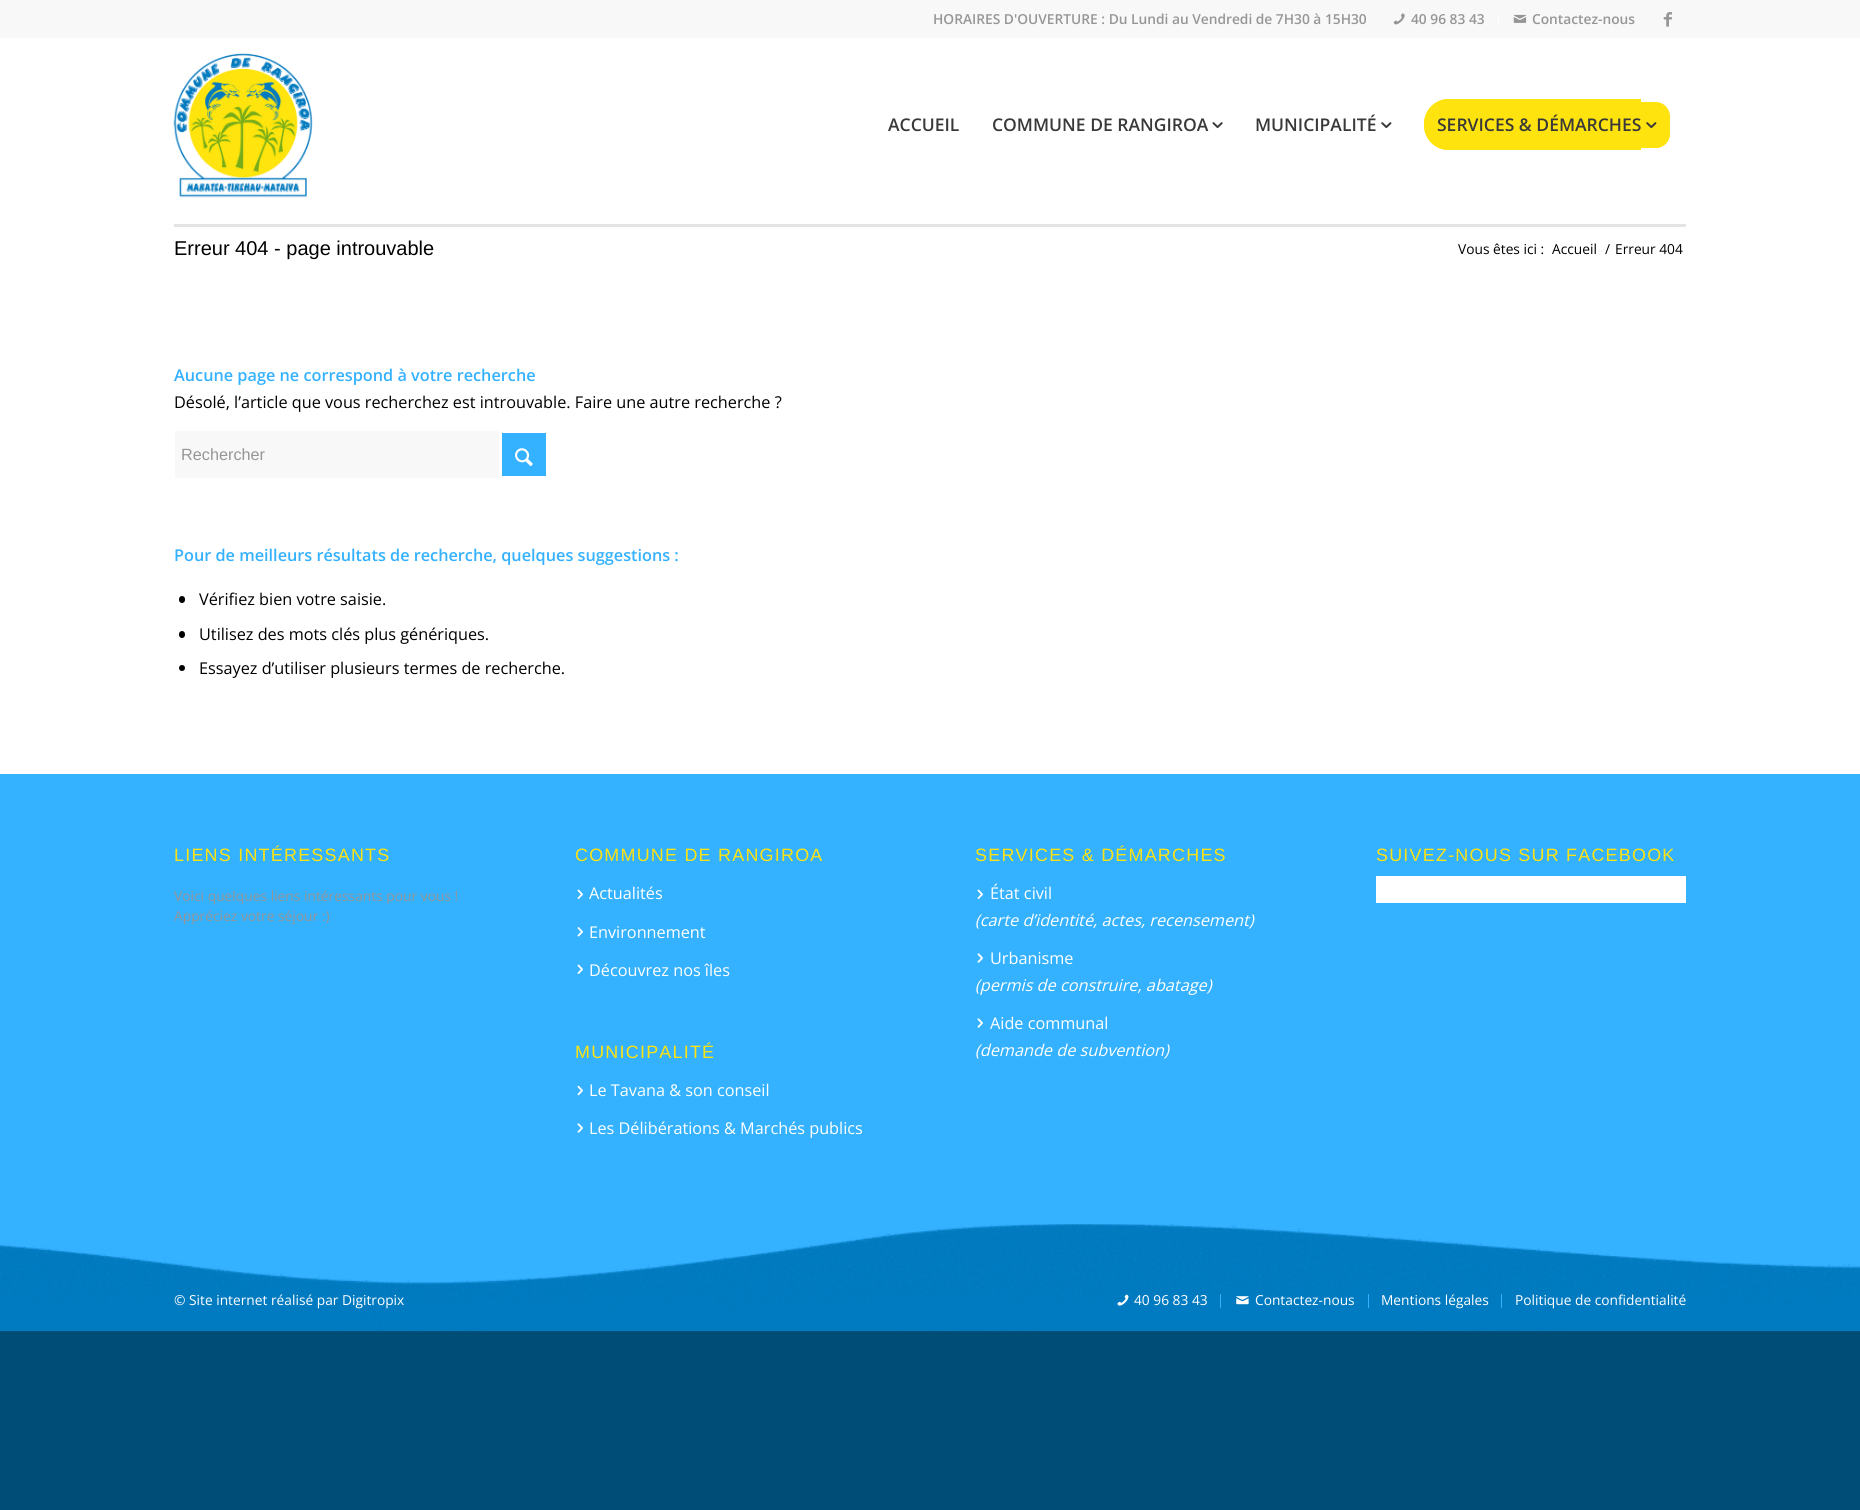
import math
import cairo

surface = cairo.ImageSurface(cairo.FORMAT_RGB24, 1860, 1510)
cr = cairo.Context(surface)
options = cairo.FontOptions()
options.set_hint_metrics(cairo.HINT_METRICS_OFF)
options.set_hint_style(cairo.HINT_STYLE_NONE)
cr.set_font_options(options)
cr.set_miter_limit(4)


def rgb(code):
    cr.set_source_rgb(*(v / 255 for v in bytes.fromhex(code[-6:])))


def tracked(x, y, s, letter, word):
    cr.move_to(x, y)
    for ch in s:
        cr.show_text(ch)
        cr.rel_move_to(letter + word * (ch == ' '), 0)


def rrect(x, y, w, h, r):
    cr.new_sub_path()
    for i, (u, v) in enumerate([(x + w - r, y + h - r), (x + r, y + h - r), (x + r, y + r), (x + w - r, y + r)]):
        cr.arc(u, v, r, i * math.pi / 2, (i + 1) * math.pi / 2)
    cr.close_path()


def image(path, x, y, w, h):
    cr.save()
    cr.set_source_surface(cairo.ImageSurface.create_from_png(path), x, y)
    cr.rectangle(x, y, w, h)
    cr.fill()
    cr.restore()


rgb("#004e78")
cr.paint()
for x, y, w, h, color in [
    (0, 38, 1860, 736, "#ffffff"),
    (0, 0, 1860, 38, "#f8f8f8"),
    (1498, 13, 1, 13, "#ffffff"),
]:
    rgb(color)
    cr.rectangle(x, y, w, h)
    cr.fill()
image("img/1.png", 1393, 13, 12, 12)
image("img/2.png", 1513, 14, 14, 9)
image("img/3.png", 1663, 12, 9, 15)
image("img/4.png", 173, 53, 140, 145)
image("img/5.png", 1212, 122, 11, 7)
image("img/6.png", 1381, 122, 11, 7)
rgb("#ffe30e")
cr.new_path()
cr.move_to(1449, 99)
cr.line_to(1641, 99)
cr.line_to(1641, 150)
cr.line_to(1449, 150)
cr.curve_to(1435, 150, 1424, 139, 1424, 125)
cr.line_to(1424, 124)
cr.curve_to(1424, 110, 1435, 99, 1449, 99)
cr.close_path()
cr.fill()
cr.set_fill_rule(cairo.FILL_RULE_EVEN_ODD)
cr.new_path()
cr.move_to(1449, 99)
cr.line_to(1641, 99)
cr.line_to(1641, 150)
cr.line_to(1449, 150)
cr.curve_to(1435, 150, 1424, 139, 1424, 125)
cr.line_to(1424, 124)
cr.curve_to(1424, 110, 1435, 99, 1449, 99)
cr.close_path()
cr.move_to(1449, 101)
cr.line_to(1641, 101)
cr.line_to(1641, 148)
cr.line_to(1449, 148)
cr.curve_to(1436, 148, 1426, 137, 1426, 125)
cr.line_to(1426, 124)
cr.curve_to(1426, 111, 1436, 101, 1449, 101)
cr.close_path()
cr.fill()
cr.new_path()
cr.move_to(1641, 103)
cr.line_to(1655.5, 103)
cr.curve_to(1663.5, 103, 1670, 109.5, 1670, 117.5)
cr.line_to(1670, 133.5)
cr.curve_to(1670, 141.5, 1663.5, 148, 1655.5, 148)
cr.line_to(1641, 148)
cr.close_path()
cr.fill()
cr.new_path()
cr.move_to(1641, 102)
cr.line_to(1656, 102)
cr.curve_to(1664, 102, 1670, 109, 1670, 117)
cr.line_to(1670, 133)
cr.curve_to(1670, 141, 1664, 148, 1656, 148)
cr.line_to(1641, 148)
cr.close_path()
cr.move_to(1641, 105)
cr.curve_to(1650, 105, 1665, 102, 1667, 114)
cr.line_to(1667, 136)
cr.curve_to(1665, 148, 1650, 145, 1641, 145)
cr.close_path()
cr.fill()
image("img/7.png", 1646, 122, 11, 7)
for x, y, w, h, color in [
    (174, 224, 1512, 3, "#e4e4e4"),
    (175, 431, 324, 47, "#f8f8f8"),
    (502, 433, 44, 43, "#34b1ff"),
]:
    rgb(color)
    cr.rectangle(x, y, w, h)
    cr.fill()
image("img/8.png", 515, 448, 18, 18)
rgb("#000000")
rrect(179, 596, 6, 7, 3)
cr.fill()
rrect(179, 631, 6, 7, 3)
cr.fill()
cr.arc(182, 668, 3, 0, 2 * math.pi)
cr.fill()
rgb("#34b1ff")
cr.rectangle(0, 774, 1860, 450)
cr.fill()
image("img/9.png", 577, 889, 6, 10)
image("img/10.png", 577, 927, 6, 10)
image("img/9.png", 577, 964, 6, 10)
image("img/11.png", 577, 1085, 6, 11)
image("img/12.png", 577, 1123, 6, 10)
image("img/9.png", 977, 889, 6, 10)
image("img/12.png", 977, 953, 6, 10)
image("img/12.png", 977, 1018, 6, 10)
rgb("#ffffff")
cr.rectangle(1376, 876, 310, 27)
cr.fill()
image("img/13.png", 0, 1224, 1860, 108)
image("img/14.png", 1117, 1294, 12, 12)
rgb("#34b1ff")
cr.rectangle(1220, 1294, 1, 14)
cr.fill()
image("img/15.png", 1236, 1296, 13, 9)
cr.rectangle(1368, 1294, 1, 14)
cr.fill()
cr.rectangle(1501, 1294, 1, 14)
cr.fill()
cr.select_font_face("Open Sans SemiBold")
cr.set_font_size(13.75)
rgb("#969696")
for x, y, s in [
    (933, 24, "HORAIRES D'OUVERTURE : Du Lundi au Vendredi de 7H30 à 15H30"),
    (1411, 24, "40 96 83 43"),
    (1532, 24, "Contactez-nous"),
]:
    cr.move_to(x, y)
    cr.show_text(s)
cr.set_font_size(17.5)
rgb("#393939")
for x, y, s in [
    (888, 131, "ACCUEIL"),
    (992, 131, "COMMUNE DE RANGIROA"),
    (1255, 131, "MUNICIPALITÉ"),
    (1437, 131, "SERVICES & DÉMARCHES"),
]:
    cr.move_to(x, y)
    cr.show_text(s)
cr.select_font_face("Liberation Sans")
cr.set_font_size(20)
rgb("#000000")
cr.move_to(174, 255)
cr.show_text("Erreur 404 - page introuvable")
cr.select_font_face("Open Sans")
cr.set_font_size(13.75)
for x, y, s in [
    (1458, 254, "Vous êtes ici :"),
    (1552, 254, "Accueil"),
    (1605, 254, "/"),
    (1615, 254, "Erreur 404"),
]:
    cr.move_to(x, y)
    cr.show_text(s)
cr.select_font_face("Open Sans SemiBold")
cr.set_font_size(16.25)
rgb("#34b1ff")
cr.move_to(174, 381)
cr.show_text("Aucune page ne correspond à votre recherche")
cr.select_font_face("Open Sans")
rgb("#000000")
cr.move_to(174, 408)
cr.show_text("Désolé, l’article que vous recherchez est introuvable. Faire une autre recherche ?")
cr.select_font_face("Liberation Sans")
rgb("#969696")
cr.move_to(181, 460)
cr.show_text("Rechercher")
cr.select_font_face("Open Sans SemiBold")
rgb("#34b1ff")
cr.move_to(174, 561)
cr.show_text("Pour de meilleurs résultats de recherche, quelques suggestions :")
cr.select_font_face("Open Sans")
rgb("#000000")
for x, y, s in [
    (199, 605, "Vérifiez bien votre saisie."),
    (199, 640, "Utilisez des mots clés plus génériques."),
    (199, 674, "Essayez d’utiliser plusieurs termes de recherche."),
]:
    cr.move_to(x, y)
    cr.show_text(s)
cr.select_font_face("Liberation Sans")
cr.set_font_size(17.9)
rgb("#ffe30e")
tracked(174, 861, "LIENS INTÉRESSANTS", 1.25, 0)
cr.select_font_face("Open Sans")
cr.set_font_size(13.8)
rgb("#969696")
cr.move_to(174, 901)
cr.show_text("Voici quelques liens intéressants pour vous !")
cr.move_to(174, 921)
cr.show_text("Appréciez votre séjour :)")
cr.select_font_face("Liberation Sans")
cr.set_font_size(17.9)
rgb("#ffe30e")
tracked(575, 861, "COMMUNE DE RANGIROA", 1.25, 0)
cr.select_font_face("Open Sans")
cr.set_font_size(16.25)
rgb("#ffffff")
for x, y, s in [
    (589, 899, "Actualités"),
    (589, 938, "Environnement"),
    (589, 976, "Découvrez nos îles"),
]:
    cr.move_to(x, y)
    cr.show_text(s)
cr.select_font_face("Liberation Sans")
cr.set_font_size(17.9)
rgb("#ffe30e")
tracked(575, 1058, "MUNICIPALITÉ", 1.25, 0)
cr.select_font_face("Open Sans")
cr.set_font_size(16.25)
rgb("#ffffff")
cr.move_to(589, 1096)
cr.show_text("Le Tavana & son conseil")
cr.move_to(589, 1134)
cr.show_text("Les Délibérations & Marchés publics")
cr.select_font_face("Liberation Sans")
cr.set_font_size(17.9)
rgb("#ffe30e")
tracked(975, 861, "SERVICES & DÉMARCHES", 1.25, 0)
cr.select_font_face("Open Sans")
cr.set_font_size(16.25)
rgb("#ffffff")
cr.move_to(990, 899)
cr.show_text("État civil")
cr.select_font_face("Open Sans", cairo.FONT_SLANT_ITALIC)
cr.move_to(975, 926)
cr.show_text("(carte d’identité, actes, recensement)")
cr.select_font_face("Open Sans")
cr.move_to(990, 964)
cr.show_text("Urbanisme")
cr.select_font_face("Open Sans", cairo.FONT_SLANT_ITALIC)
cr.move_to(975, 991)
cr.show_text("(permis de construire, abatage)")
cr.select_font_face("Open Sans")
cr.move_to(990, 1029)
cr.show_text("Aide communal")
cr.select_font_face("Open Sans", cairo.FONT_SLANT_ITALIC)
cr.move_to(975, 1056)
cr.show_text("(demande de subvention)")
cr.select_font_face("Liberation Sans")
cr.set_font_size(17.9)
rgb("#ffe30e")
tracked(1376, 861, "SUIVEZ-NOUS SUR FACEBOOK", 1.25, 0)
cr.select_font_face("Open Sans")
cr.set_font_size(13.75)
rgb("#ffffff")
for x, y, s in [
    (174, 1305, "© Site internet réalisé par Digitropix"),
    (1134, 1305, "40 96 83 43"),
    (1255, 1305, "Contactez-nous"),
    (1381, 1305, "Mentions légales"),
    (1515, 1305, "Politique de confidentialité"),
]:
    cr.move_to(x, y)
    cr.show_text(s)
surface.write_to_png("page.png")
